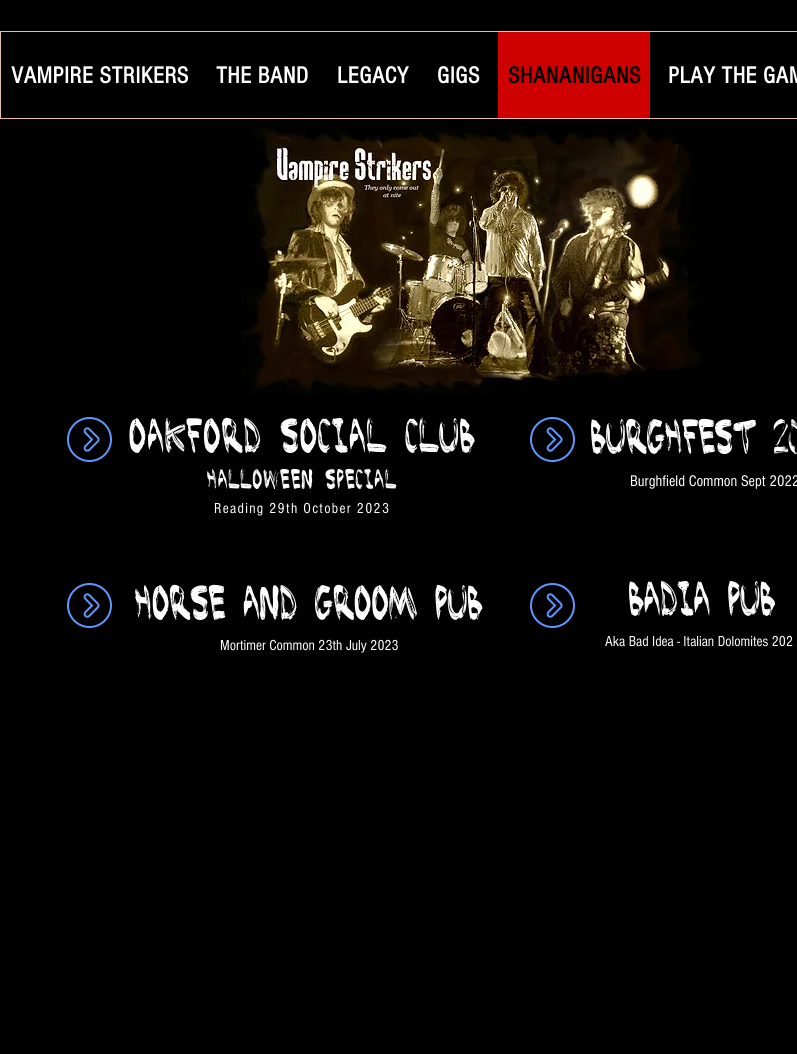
import math
import cairo

surface = cairo.ImageSurface(cairo.FORMAT_RGB24, 797, 1054)
cr = cairo.Context(surface)
options = cairo.FontOptions()
options.set_hint_metrics(cairo.HINT_METRICS_OFF)
options.set_hint_style(cairo.HINT_STYLE_NONE)
cr.set_font_options(options)
cr.set_miter_limit(4)


def rgb(code):
    cr.set_source_rgb(*(v / 255 for v in bytes.fromhex(code[-6:])))


def tracked(x, y, s, letter, word):
    cr.move_to(x, y)
    for ch in s:
        cr.show_text(ch)
        cr.rel_move_to(letter + word * (ch == ' '), 0)


def image(path, x, y, w, h):
    cr.save()
    cr.set_source_surface(cairo.ImageSurface.create_from_png(path), x, y)
    cr.rectangle(x, y, w, h)
    cr.fill()
    cr.restore()


rgb("#000000")
cr.paint()
cr.rectangle(0.5, 31.5, 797, 87)
rgb("#e4bfad")
cr.set_line_width(1)
cr.stroke()
rgb("#cf0000")
cr.rectangle(498, 32, 152, 86)
cr.fill()
image("img/1.png", 241, 126, 460, 270)
image("img/2.png", 67, 417, 45, 45)
image("img/2.png", 530, 417, 45, 45)
image("img/2.png", 67, 583, 45, 45)
image("img/2.png", 530, 583, 45, 45)
cr.select_font_face("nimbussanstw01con", cairo.FONT_SLANT_NORMAL, cairo.FONT_WEIGHT_BOLD)
cr.set_font_size(24)
rgb("#ffffff")
for x, y, s in [
    (11, 83, "VAMPIRE STRIKERS"),
    (216, 83, "THE BAND"),
    (337, 83, "LEGACY"),
    (437, 83, "GIGS"),
]:
    tracked(x, y, s, 0.5, 0)
rgb("#010101")
tracked(508, 83, "SHANANIGANS", 0.5, 0)
rgb("#ffffff")
tracked(668, 83, "PLAY THE GAM", 0.5, 0)
cr.select_font_face("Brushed")
cr.set_font_size(35)
tracked(129, 446, "oakford social club", 1.3, 0)
cr.set_font_size(20)
tracked(207, 485, "halloween special", 1.3, 0)
cr.select_font_face("nimbussanstw01con")
cr.set_font_size(15)
tracked(214, 513, "Reading 29th October 2023", 1.3, 0)
cr.select_font_face("Brushed")
cr.set_font_size(35)
tracked(591, 447, "Burghfest 20", 0.3, 0)
cr.select_font_face("nimbussanstw01con")
cr.set_font_size(16)
cr.move_to(630, 486)
cr.show_text("Burghfield Common Sept 2022")
cr.select_font_face("Brushed")
cr.set_font_size(35)
tracked(135, 613, "Horse and groom pub", 0.3, 0)
cr.select_font_face("nimbussanstw01con")
cr.set_font_size(15)
cr.move_to(220, 650)
cr.show_text("Mortimer Common 23th July 2023")
cr.select_font_face("Brushed")
cr.set_font_size(35)
tracked(629, 609, "Badia Pub", 0.3, 0)
cr.select_font_face("nimbussanstw01con")
cr.set_font_size(15)
cr.move_to(605, 646)
cr.show_text("Aka Bad Idea - Italian Dolomites 202")
surface.write_to_png("page.png")
